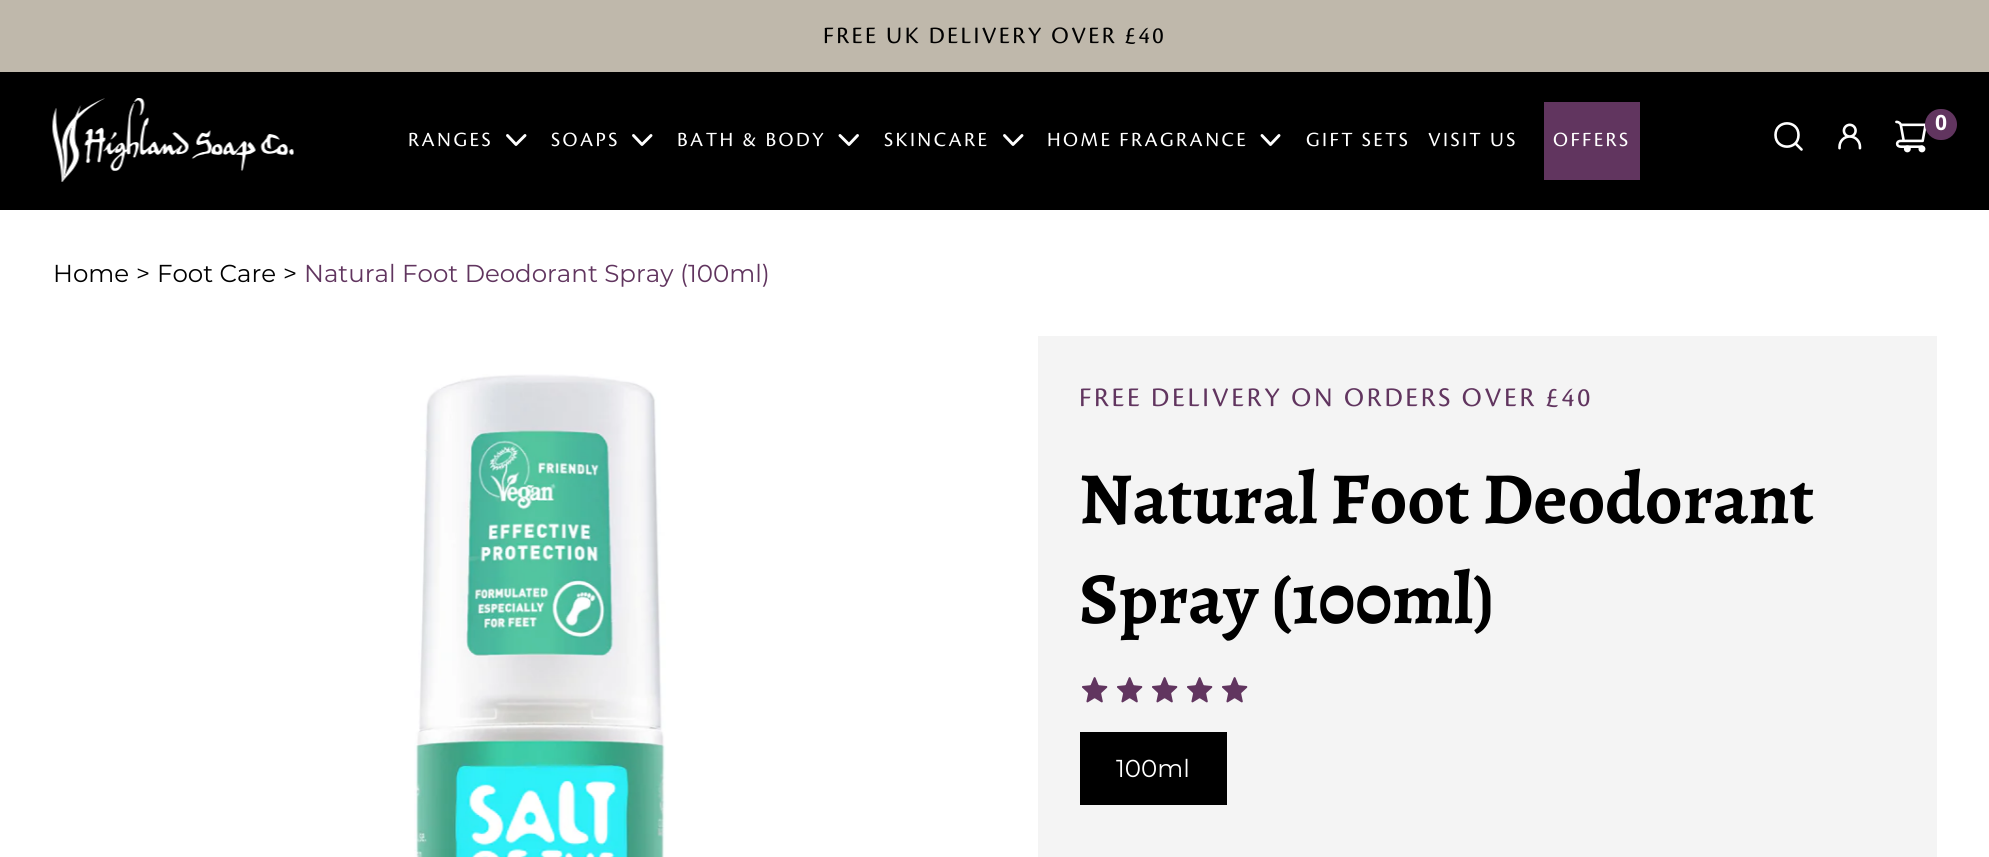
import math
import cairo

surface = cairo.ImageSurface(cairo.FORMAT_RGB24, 1989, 857)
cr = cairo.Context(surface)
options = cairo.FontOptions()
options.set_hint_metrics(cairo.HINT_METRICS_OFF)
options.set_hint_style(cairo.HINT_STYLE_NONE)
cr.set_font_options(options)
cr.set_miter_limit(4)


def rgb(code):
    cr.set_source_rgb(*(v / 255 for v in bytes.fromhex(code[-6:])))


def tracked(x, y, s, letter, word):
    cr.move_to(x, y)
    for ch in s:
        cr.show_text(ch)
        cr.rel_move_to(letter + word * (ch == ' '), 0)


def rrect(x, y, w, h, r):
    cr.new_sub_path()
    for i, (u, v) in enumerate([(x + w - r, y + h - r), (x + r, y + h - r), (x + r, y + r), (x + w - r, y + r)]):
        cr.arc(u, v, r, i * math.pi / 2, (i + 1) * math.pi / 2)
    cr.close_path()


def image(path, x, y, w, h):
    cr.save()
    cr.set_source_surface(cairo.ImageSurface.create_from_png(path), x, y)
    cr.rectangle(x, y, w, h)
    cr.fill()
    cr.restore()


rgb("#ffffff")
cr.paint()
rgb("#bfb8ab")
cr.rectangle(0, 0, 1989, 72)
cr.fill()
rgb("#000000")
cr.rectangle(0, 72, 1989, 138)
cr.fill()
image("img/1.png", 52, 98, 242, 84)
cr.new_path()
cr.move_to(1796, 144)
cr.line_to(1801.5, 149.5)
cr.move_to(1775.5, 135)
cr.curve_to(1775.5, 150.5, 1798.5, 150.5, 1798.5, 135)
cr.curve_to(1798.5, 119.5, 1775.5, 119.5, 1775.5, 135)
cr.close_path()
rgb("#ffffff")
cr.set_line_width(2.6)
cr.set_line_cap(cairo.LINE_CAP_ROUND)
cr.set_line_join(cairo.LINE_JOIN_ROUND)
cr.stroke()
image("img/2.png", 1838, 123, 24, 27)
image("img/3.png", 1895, 120, 31, 33)
rgb("#61355f")
rrect(1925, 109, 32, 31, 15.5)
cr.fill()
cr.new_path()
cr.move_to(507.5, 135.5)
cr.line_to(516, 144.5)
cr.line_to(525, 135.5)
rgb("#ffffff")
cr.set_line_width(2.9)
cr.stroke()
cr.new_path()
cr.move_to(633.5, 135.5)
cr.line_to(642, 144.5)
cr.line_to(651, 135.5)
cr.stroke()
cr.new_path()
cr.move_to(840, 135.5)
cr.line_to(849, 144.5)
cr.line_to(857.5, 135.5)
cr.stroke()
cr.new_path()
cr.move_to(1004.5, 135.5)
cr.line_to(1013, 144.5)
cr.line_to(1022, 135.5)
cr.stroke()
cr.new_path()
cr.move_to(1262, 135.5)
cr.line_to(1270.5, 144.5)
cr.line_to(1279, 135.5)
cr.stroke()
rgb("#61355f")
cr.rectangle(1544, 102, 96, 78)
cr.fill()
image("img/4.png", 414, 374, 252, 483)
rgb("#f4f4f4")
cr.rectangle(1038, 336, 899, 521)
cr.fill()
image("img/5.png", 1082, 677, 26, 26)
image("img/5.png", 1117, 677, 26, 26)
image("img/5.png", 1152, 677, 26, 26)
image("img/5.png", 1187, 677, 26, 26)
image("img/5.png", 1222, 677, 26, 26)
rgb("#000000")
cr.rectangle(1080, 732, 147, 73)
cr.fill()
cr.select_font_face("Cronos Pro")
cr.set_font_size(24.5)
tracked(823, 43, "FREE UK DELIVERY OVER £40", 2.45, 0)
cr.select_font_face("Open Sans", cairo.FONT_SLANT_NORMAL, cairo.FONT_WEIGHT_BOLD)
cr.set_font_size(21)
rgb("#ffffff")
cr.move_to(1935, 130)
cr.show_text("0")
cr.select_font_face("Cronos Pro")
for x, y, s in [
    (408, 146, "RANGES"),
    (551, 146, "SOAPS"),
    (677, 146, "BATH & BODY"),
    (884, 146, "SKINCARE"),
    (1047, 146, "HOME FRAGRANCE"),
    (1306, 146, "GIFT SETS"),
    (1428, 146, "VISIT US"),
    (1553, 146, "OFFERS"),
]:
    tracked(x, y, s, 2.45, 0)
cr.select_font_face("Montserrat")
cr.set_font_size(24.5)
rgb("#000000")
for x, y, s in [
    (53, 282, "Home"),
    (136, 282, ">"),
    (157, 282, "Foot Care"),
    (283, 282, ">"),
]:
    cr.move_to(x, y)
    cr.show_text(s)
rgb("#61355f")
cr.move_to(304, 282)
cr.show_text("Natural Foot Deodorant Spray (100ml)")
cr.select_font_face("Cronos Pro")
cr.set_font_size(28)
tracked(1079, 406, "FREE DELIVERY ON ORDERS OVER £40", 2.8, 0)
cr.select_font_face("Alegreya", cairo.FONT_SLANT_NORMAL, cairo.FONT_WEIGHT_BOLD)
cr.set_font_size(73.5)
rgb("#000000")
cr.move_to(1079, 523)
cr.show_text("Natural Foot Deodorant")
cr.move_to(1079, 623)
cr.show_text("Spray (100ml)")
cr.select_font_face("Montserrat")
cr.set_font_size(24.5)
rgb("#ffffff")
cr.move_to(1116, 777)
cr.show_text("100ml")
surface.write_to_png("page.png")
